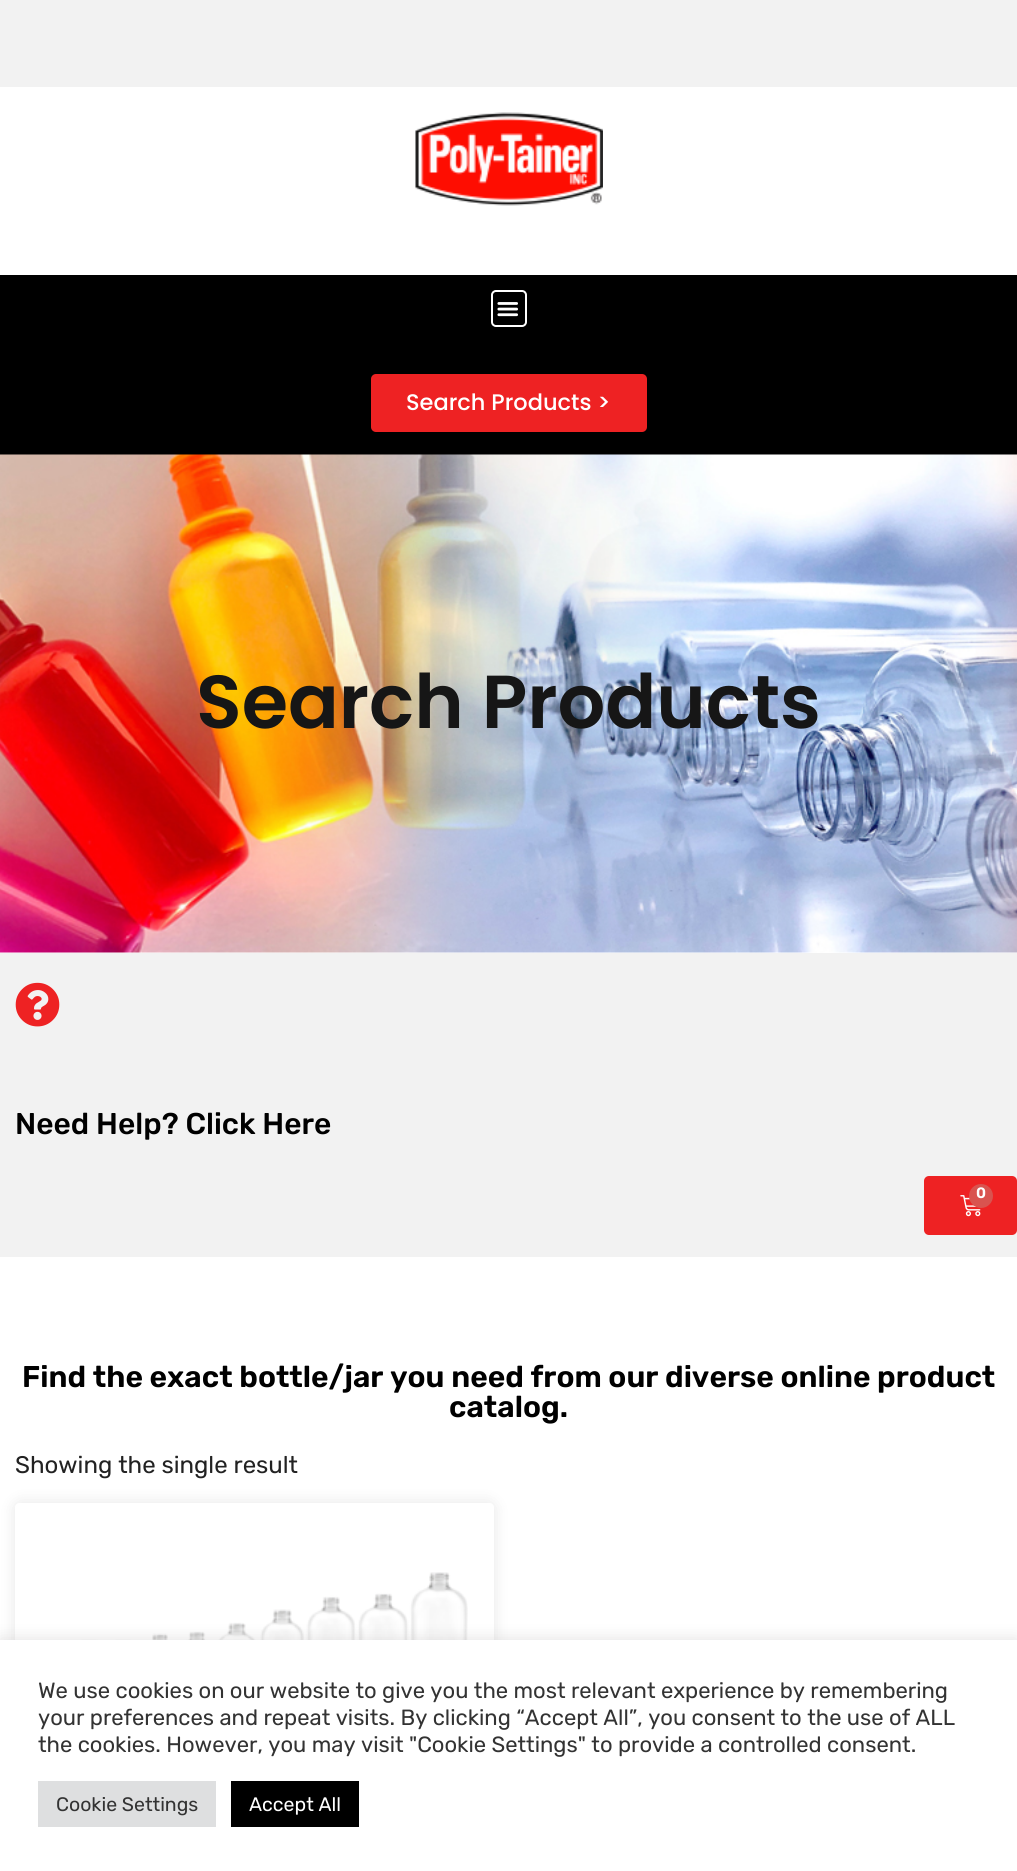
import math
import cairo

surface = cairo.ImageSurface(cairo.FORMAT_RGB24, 1017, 1871)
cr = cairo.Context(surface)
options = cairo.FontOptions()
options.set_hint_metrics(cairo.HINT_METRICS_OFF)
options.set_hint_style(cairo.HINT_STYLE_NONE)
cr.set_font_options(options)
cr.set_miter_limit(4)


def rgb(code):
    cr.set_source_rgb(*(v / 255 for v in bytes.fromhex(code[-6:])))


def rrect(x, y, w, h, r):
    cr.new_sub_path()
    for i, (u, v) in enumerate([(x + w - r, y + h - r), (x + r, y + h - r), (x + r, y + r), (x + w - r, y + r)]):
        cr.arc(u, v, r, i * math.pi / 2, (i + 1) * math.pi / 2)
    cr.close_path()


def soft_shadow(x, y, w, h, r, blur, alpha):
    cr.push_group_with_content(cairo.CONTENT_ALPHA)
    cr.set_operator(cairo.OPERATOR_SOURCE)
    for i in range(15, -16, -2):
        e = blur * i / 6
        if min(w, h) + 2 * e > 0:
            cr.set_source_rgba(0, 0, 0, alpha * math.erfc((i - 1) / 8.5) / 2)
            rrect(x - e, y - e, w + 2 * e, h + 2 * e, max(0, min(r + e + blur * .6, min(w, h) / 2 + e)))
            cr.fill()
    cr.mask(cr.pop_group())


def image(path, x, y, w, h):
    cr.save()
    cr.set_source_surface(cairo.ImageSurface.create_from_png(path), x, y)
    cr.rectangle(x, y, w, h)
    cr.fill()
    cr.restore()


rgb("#ffffff")
cr.paint()
rgb("#f2f2f2")
cr.rectangle(0, 0, 1017, 87)
cr.fill()
image("img/1.png", 415, 112, 188, 94)
rgb("#000000")
cr.rectangle(0, 275, 1017, 180)
cr.fill()
rrect(492, 291, 34, 35, 4)
rgb("#ffffff")
cr.stroke()
image("img/2.png", 497, 302, 21, 15)
rgb("#ee2223")
rrect(371, 374, 276, 58, 5)
cr.fill()
image("img/3.png", 0, 454, 1017, 499)
rgb("#f2f2f2")
cr.rectangle(0, 953, 1017, 304)
cr.fill()
image("img/4.png", 15, 982, 45, 45)
rgb("#ee2223")
rrect(924, 1176, 93, 59, 5)
cr.fill()
image("img/5.png", 960, 1195, 21, 22)
rgb("#d9534f")
cr.arc(981, 1196, 12, 0, 2 * math.pi)
cr.fill()
cr.save()
cr.set_fill_rule(cairo.FILL_RULE_EVEN_ODD)
cr.new_path()
cr.move_to(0, 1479)
cr.line_to(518, 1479)
cr.line_to(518, 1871)
cr.line_to(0, 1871)
cr.close_path()
cr.move_to(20, 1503)
cr.line_to(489, 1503)
cr.curve_to(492, 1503, 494, 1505, 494, 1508)
cr.line_to(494, 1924)
cr.curve_to(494, 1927, 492, 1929, 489, 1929)
cr.line_to(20, 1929)
cr.curve_to(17, 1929, 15, 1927, 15, 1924)
cr.line_to(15, 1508)
cr.curve_to(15, 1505, 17, 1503, 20, 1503)
cr.close_path()
cr.clip()
rgb("#000000")
soft_shadow(15, 1503, 479, 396, 5, 7.5, 0.1)
cr.restore()
image("img/6.png", 81, 1572, 387, 68)
rgb("#acabab")
soft_shadow(0, 1638, 1017, 233, 0, 7.5, 0.3)
for x, y, w, h, color in [
    (0, 1640, 1017, 231, "#ffffff"),
    (38, 1781, 178, 46, "#dedfe0"),
    (231, 1781, 128, 46, "#000000"),
]:
    rgb(color)
    cr.rectangle(x, y, w, h)
    cr.fill()
cr.select_font_face("Poppins Medium")
cr.set_font_size(22.5)
rgb("#ffffff")
cr.move_to(406, 410)
cr.show_text("Search Products >")
cr.select_font_face("Poppins SemiBold")
cr.set_font_size(75)
rgb("#161616")
cr.move_to(196, 728)
cr.show_text("Search Products")
cr.select_font_face("Rubik Medium")
cr.set_font_size(30)
rgb("#000000")
cr.move_to(15, 1134)
cr.show_text("Need Help? Click Here")
cr.select_font_face("Rubik SemiBold")
cr.set_font_size(15)
rgb("#ffffff")
cr.move_to(976, 1198)
cr.show_text("0")
cr.set_font_size(30)
rgb("#000000")
cr.move_to(22, 1387)
cr.show_text("Find the exact bottle/jar you need from our diverse online product")
cr.move_to(449, 1417)
cr.show_text("catalog.")
cr.select_font_face("Rubik")
cr.set_font_size(24)
rgb("#222222")
cr.move_to(15, 1473)
cr.show_text("Showing the single result")
cr.set_font_size(22)
rgb("#333333")
for x, y, s in [
    (38, 1698, "We use cookies on our website to give you the most relevant experience by remembering"),
    (38, 1725, "your preferences and repeat visits. By clicking “Accept All”, you consent to the use of ALL"),
    (38, 1752, "the cookies. However, you may visit \"Cookie Settings\" to provide a controlled consent."),
]:
    cr.move_to(x, y)
    cr.show_text(s)
cr.set_font_size(19.5)
cr.move_to(56, 1811)
cr.show_text("Cookie Settings")
rgb("#ffffff")
cr.move_to(249, 1811)
cr.show_text("Accept All")
surface.write_to_png("page.png")
